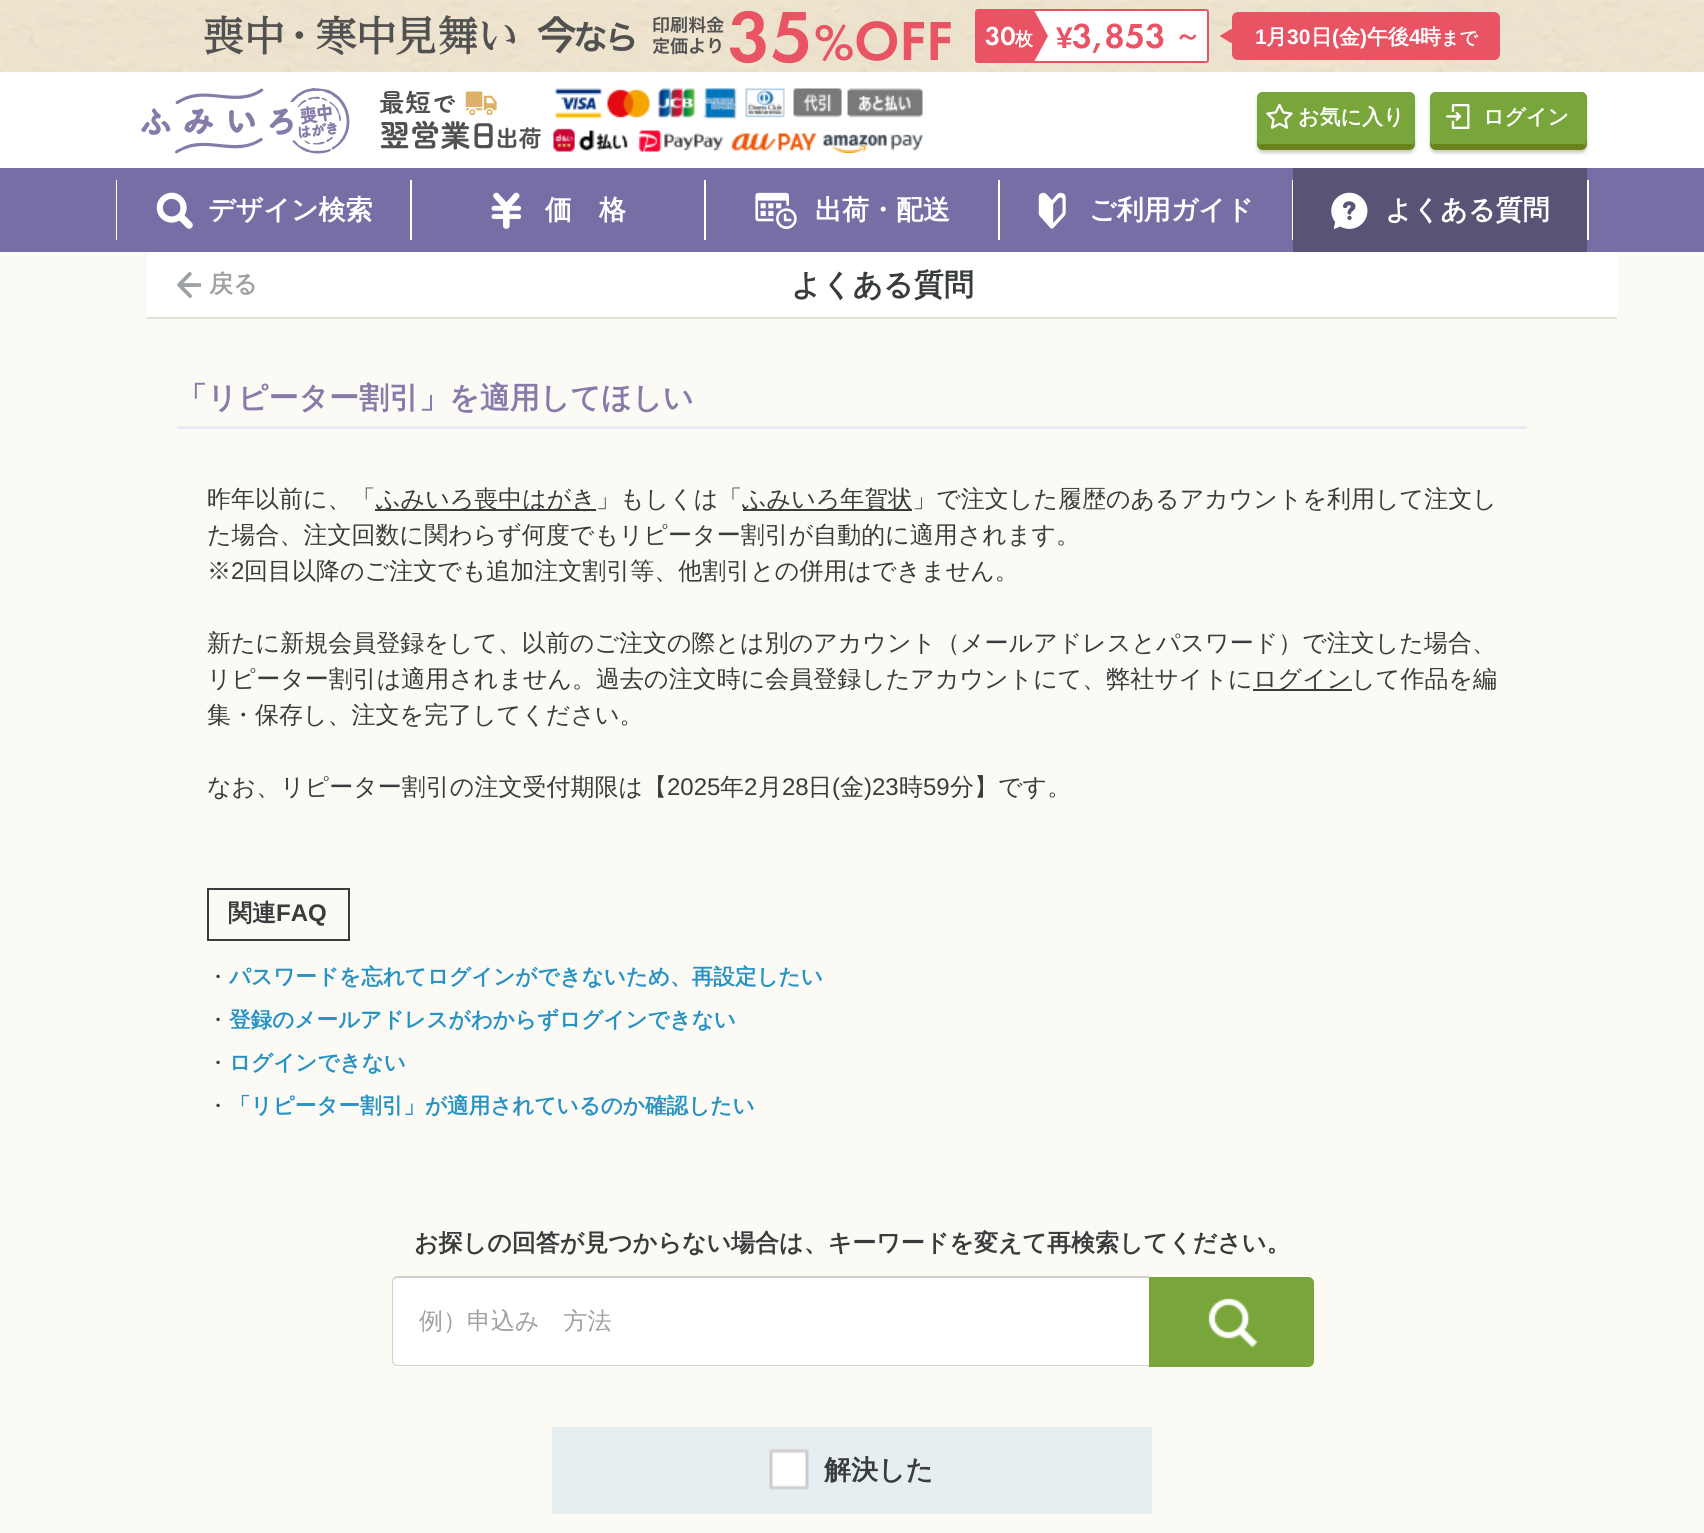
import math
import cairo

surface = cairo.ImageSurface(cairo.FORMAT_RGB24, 1704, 1533)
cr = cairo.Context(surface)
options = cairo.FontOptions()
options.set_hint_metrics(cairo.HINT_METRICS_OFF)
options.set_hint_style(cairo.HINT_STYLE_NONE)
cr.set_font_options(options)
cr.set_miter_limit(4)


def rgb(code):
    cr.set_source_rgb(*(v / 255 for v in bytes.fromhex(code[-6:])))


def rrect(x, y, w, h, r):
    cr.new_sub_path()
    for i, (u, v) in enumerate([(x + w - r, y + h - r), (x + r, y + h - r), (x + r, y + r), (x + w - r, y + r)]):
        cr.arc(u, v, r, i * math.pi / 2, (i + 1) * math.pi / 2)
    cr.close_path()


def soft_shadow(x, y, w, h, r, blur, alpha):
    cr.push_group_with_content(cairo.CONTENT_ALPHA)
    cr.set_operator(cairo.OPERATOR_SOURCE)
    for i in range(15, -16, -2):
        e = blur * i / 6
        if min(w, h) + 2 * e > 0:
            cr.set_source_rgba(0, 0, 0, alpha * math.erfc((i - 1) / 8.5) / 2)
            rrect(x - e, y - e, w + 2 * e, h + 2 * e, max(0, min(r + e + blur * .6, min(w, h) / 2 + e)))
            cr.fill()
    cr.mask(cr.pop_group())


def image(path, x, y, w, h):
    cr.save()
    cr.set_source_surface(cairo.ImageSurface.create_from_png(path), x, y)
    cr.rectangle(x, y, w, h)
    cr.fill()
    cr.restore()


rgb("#fbfaf5")
cr.paint()
rgb("#ffffff")
cr.rectangle(0, 72, 1704, 96)
cr.fill()
image("img/1.png", 0, 0, 1704, 72)
image("img/2.png", 204, 15, 311, 40)
image("img/3.png", 537, 16, 98, 38)
image("img/4.png", 653, 16, 71, 39)
rrect(976, 10, 232, 52, 2)
cr.fill_preserve()
rgb("#e95464")
cr.stroke()
cr.rectangle(977, 11, 57, 50)
cr.fill()
cr.new_path()
cr.move_to(1034, 62)
cr.line_to(1034, 10)
cr.line_to(1048, 36)
cr.close_path()
cr.fill()
rrect(1232, 12, 268, 48, 6)
cr.fill()
cr.save()
cr.rectangle(1220, 29, 12, 15)
cr.clip()
cr.set_fill_rule(cairo.FILL_RULE_EVEN_ODD)
cr.new_path()
cr.move_to(1219.5, 36)
cr.line_to(1231, 29)
cr.line_to(1242.5, 36)
cr.line_to(1231, 43)
cr.close_path()
cr.fill()
cr.restore()
image("img/5.png", 141, 87, 209, 67)
image("img/6.png", 380, 90, 161, 60)
image("img/7.png", 553, 88, 370, 65)
rgb("#000000")
soft_shadow(1257, 95, 158, 58, 6, 1.5, 0.2)
rgb("#69821b")
rrect(1257, 92, 158, 58, 6)
cr.fill()
rgb("#79a63a")
rrect(1257, 92, 158, 54, 6)
cr.fill()
rgb("#69821b")
cr.rectangle(1260, 144, 152, 2)
cr.fill()
image("img/8.png", 1266, 104, 27, 25)
rgb("#000000")
soft_shadow(1430, 95, 157, 58, 6, 1.5, 0.2)
rgb("#69821b")
rrect(1430, 92, 157, 58, 6)
cr.fill()
rgb("#79a63a")
rrect(1430, 92, 157, 54, 6)
cr.fill()
rgb("#69821b")
cr.rectangle(1433, 144, 151, 2)
cr.fill()
image("img/9.png", 1446, 104, 24, 25)
for x, y, w, h, color in [
    (0, 168, 1704, 84, "#786ea5"),
    (116, 180, 1, 60, "#ffffff"),
    (1587, 180, 2, 60, "#ffffff"),
]:
    rgb(color)
    cr.rectangle(x, y, w, h)
    cr.fill()
image("img/10.png", 156, 192, 37, 37)
cr.rectangle(410, 180, 2, 60)
cr.fill()
image("img/11.png", 491, 192, 31, 37)
cr.rectangle(704, 180, 2, 60)
cr.fill()
image("img/12.png", 755, 192, 42, 37)
cr.rectangle(998, 180, 2, 60)
cr.fill()
image("img/13.png", 1038, 192, 28, 37)
cr.rectangle(1292, 180, 1, 60)
cr.fill()
rgb("#5a5375")
cr.rectangle(1293, 168, 294, 84)
cr.fill()
image("img/14.png", 1331, 192, 37, 37)
rgb("#ffffff")
cr.rectangle(147, 252, 1470, 65)
cr.fill()
rgb("#dde1da")
cr.rectangle(147, 317, 1470, 2)
cr.fill()
image("img/15.png", 177, 272, 24, 26)
for x, y, w, h, color in [
    (177, 426, 1350, 3, "#eae8f2"),
    (375, 509, 221, 2, "#383c3c"),
    (743, 509, 169, 2, "#383c3c"),
    (1253, 689, 99, 2, "#383c3c"),
]:
    rgb(color)
    cr.rectangle(x, y, w, h)
    cr.fill()
cr.rectangle(208, 889, 141, 51)
cr.stroke()
rgb("#ffffff")
cr.new_path()
cr.move_to(398, 1277)
cr.line_to(1149, 1277)
cr.line_to(1149, 1367)
cr.line_to(398, 1367)
cr.curve_to(394.5, 1367, 392, 1364.5, 392, 1361)
cr.line_to(392, 1283)
cr.curve_to(392, 1279.5, 394.5, 1277, 398, 1277)
cr.close_path()
cr.fill()
rgb("#d0d0d0")
cr.set_fill_rule(cairo.FILL_RULE_EVEN_ODD)
cr.new_path()
cr.move_to(398, 1276)
cr.line_to(1149, 1276)
cr.line_to(1149, 1366)
cr.line_to(398, 1366)
cr.curve_to(394, 1366, 392, 1364, 392, 1360)
cr.line_to(392, 1282)
cr.curve_to(392, 1279, 394, 1276, 398, 1276)
cr.close_path()
cr.move_to(398, 1278)
cr.line_to(1149, 1278)
cr.line_to(1149, 1365)
cr.line_to(398, 1365)
cr.curve_to(395, 1365, 393, 1363, 393, 1360)
cr.line_to(393, 1282)
cr.curve_to(393, 1280, 395, 1278, 398, 1278)
cr.close_path()
cr.fill()
rgb("#79a63a")
cr.new_path()
cr.move_to(1149, 1277)
cr.line_to(1308, 1277)
cr.curve_to(1311.5, 1277, 1314, 1279.5, 1314, 1283)
cr.line_to(1314, 1361)
cr.curve_to(1314, 1364.5, 1311.5, 1367, 1308, 1367)
cr.line_to(1149, 1367)
cr.close_path()
cr.fill()
image("img/16.png", 1208, 1298, 50, 50)
rgb("#e6eef1")
cr.rectangle(552, 1427, 600, 87)
cr.fill()
image("img/17.png", 769, 1449, 40, 41)
cr.select_font_face("Futura PT Medium")
cr.set_font_size(75)
rgb("#e95464")
cr.move_to(728, 62)
cr.show_text("35")
cr.set_font_size(52)
cr.move_to(814, 60)
cr.show_text("%")
cr.set_font_size(57)
cr.move_to(854, 60)
cr.show_text("OFF")
cr.set_font_size(27)
rgb("#ffffff")
cr.move_to(985, 45)
cr.show_text("30")
cr.select_font_face("WenQuanYi Zen Hei", cairo.FONT_SLANT_NORMAL, cairo.FONT_WEIGHT_BOLD)
cr.set_font_size(18)
cr.move_to(1015, 45)
cr.show_text("枚")
cr.select_font_face("Liberation Sans", cairo.FONT_SLANT_NORMAL, cairo.FONT_WEIGHT_BOLD)
cr.set_font_size(30)
rgb("#e95464")
cr.move_to(1056, 48)
cr.show_text("¥")
cr.select_font_face("Futura PT Medium")
cr.set_font_size(36)
cr.move_to(1072, 48)
cr.show_text("3,853")
cr.select_font_face("WenQuanYi Zen Hei", cairo.FONT_SLANT_NORMAL, cairo.FONT_WEIGHT_BOLD)
cr.set_font_size(27)
cr.move_to(1174, 45)
cr.show_text("～")
cr.select_font_face("Liberation Sans", cairo.FONT_SLANT_NORMAL, cairo.FONT_WEIGHT_BOLD)
cr.set_font_size(21)
rgb("#ffffff")
cr.move_to(1255, 44)
cr.show_text("1")
cr.select_font_face("WenQuanYi Zen Hei", cairo.FONT_SLANT_NORMAL, cairo.FONT_WEIGHT_BOLD)
cr.move_to(1266, 44)
cr.show_text("月")
cr.select_font_face("Liberation Sans", cairo.FONT_SLANT_NORMAL, cairo.FONT_WEIGHT_BOLD)
cr.move_to(1287, 44)
cr.show_text("30")
cr.select_font_face("WenQuanYi Zen Hei", cairo.FONT_SLANT_NORMAL, cairo.FONT_WEIGHT_BOLD)
cr.move_to(1311, 44)
cr.show_text("日")
cr.select_font_face("Liberation Sans", cairo.FONT_SLANT_NORMAL, cairo.FONT_WEIGHT_BOLD)
cr.move_to(1332, 44)
cr.show_text("(")
cr.select_font_face("WenQuanYi Zen Hei", cairo.FONT_SLANT_NORMAL, cairo.FONT_WEIGHT_BOLD)
cr.move_to(1339, 44)
cr.show_text("金")
cr.select_font_face("Liberation Sans", cairo.FONT_SLANT_NORMAL, cairo.FONT_WEIGHT_BOLD)
cr.move_to(1360, 44)
cr.show_text(")")
cr.select_font_face("WenQuanYi Zen Hei", cairo.FONT_SLANT_NORMAL, cairo.FONT_WEIGHT_BOLD)
cr.move_to(1367, 44)
cr.show_text("午後")
cr.select_font_face("Liberation Sans", cairo.FONT_SLANT_NORMAL, cairo.FONT_WEIGHT_BOLD)
cr.move_to(1409, 44)
cr.show_text("4")
cr.select_font_face("WenQuanYi Zen Hei", cairo.FONT_SLANT_NORMAL, cairo.FONT_WEIGHT_BOLD)
cr.move_to(1420, 44)
cr.show_text("時")
cr.set_font_size(18)
cr.move_to(1441, 44)
cr.show_text("まで")
cr.set_font_size(21)
cr.move_to(1298, 124)
cr.show_text("お気に入り")
cr.move_to(1483, 124)
cr.show_text("ログイン")
cr.set_font_size(27)
for x, y, s in [
    (208, 219, "デザイン検索"),
    (545, 219, "価　格"),
    (815, 219, "出荷・配送"),
    (1089, 219, "ご利用ガイド"),
    (1385, 219, "よくある質問"),
]:
    cr.move_to(x, y)
    cr.show_text(s)
cr.set_font_size(24)
rgb("#9ea1a3")
cr.move_to(209, 292)
cr.show_text("戻る")
cr.set_font_size(30)
rgb("#383c3c")
cr.move_to(791, 295)
cr.show_text("よくある質問")
rgb("#867ba9")
cr.move_to(177, 408)
cr.show_text("「リピーター割引」を適用してほしい")
cr.select_font_face("WenQuanYi Zen Hei Medium")
cr.set_font_size(24)
rgb("#383c3c")
for x, y, s in [
    (207, 507, "昨年以前に、「"),
    (376, 507, "ふみいろ喪中はがき」もしくは「"),
    (742, 507, "ふみいろ年賀状」で注文した履歴のあるアカウントを利用して注文し"),
    (207, 543, "た場合、注文回数に関わらず何度でもリピーター割引が自動的に適用されます。"),
    (207, 579, "※"),
]:
    cr.move_to(x, y)
    cr.show_text(s)
cr.select_font_face("Liberation Sans")
cr.move_to(231, 579)
cr.show_text("2")
cr.select_font_face("WenQuanYi Zen Hei Medium")
for x, y, s in [
    (244, 579, "回目以降のご注文でも追加注文割引等、他割引との併用はできません。"),
    (207, 651, "新たに新規会員登録をして、以前のご注文の際とは別のアカウント（メールアドレスとパスワード）で注文した場合、"),
    (207, 687, "リピーター割引は適用されません。過去の注文時に会員登録したアカウントにて、弊社サイトに"),
    (1253, 687, "ログインして作品を編"),
    (207, 723, "集・保存し、注文を完了してください。"),
    (207, 795, "なお、リピーター割引の注文受付期限は【"),
]:
    cr.move_to(x, y)
    cr.show_text(s)
cr.select_font_face("Liberation Sans")
cr.move_to(667, 795)
cr.show_text("2025")
cr.select_font_face("WenQuanYi Zen Hei Medium")
cr.move_to(720, 795)
cr.show_text("年")
cr.select_font_face("Liberation Sans")
cr.move_to(744, 795)
cr.show_text("2")
cr.select_font_face("WenQuanYi Zen Hei Medium")
cr.move_to(758, 795)
cr.show_text("月")
cr.select_font_face("Liberation Sans")
cr.move_to(782, 795)
cr.show_text("28")
cr.select_font_face("WenQuanYi Zen Hei Medium")
cr.move_to(808, 795)
cr.show_text("日")
cr.select_font_face("Liberation Sans")
cr.move_to(832, 795)
cr.show_text("(")
cr.select_font_face("WenQuanYi Zen Hei Medium")
cr.move_to(840, 795)
cr.show_text("金")
cr.select_font_face("Liberation Sans")
cr.move_to(864, 795)
cr.show_text(")23")
cr.select_font_face("WenQuanYi Zen Hei Medium")
cr.move_to(899, 795)
cr.show_text("時")
cr.select_font_face("Liberation Sans")
cr.move_to(923, 795)
cr.show_text("59")
cr.select_font_face("WenQuanYi Zen Hei Medium")
cr.move_to(950, 795)
cr.show_text("分】です。")
cr.select_font_face("WenQuanYi Zen Hei", cairo.FONT_SLANT_NORMAL, cairo.FONT_WEIGHT_BOLD)
cr.move_to(228, 921)
cr.show_text("関連")
cr.select_font_face("Liberation Sans", cairo.FONT_SLANT_NORMAL, cairo.FONT_WEIGHT_BOLD)
cr.move_to(276, 921)
cr.show_text("FAQ")
cr.select_font_face("WenQuanYi Zen Hei Medium")
cr.set_font_size(21.6)
cr.move_to(207, 984)
cr.show_text("・")
cr.select_font_face("WenQuanYi Zen Hei", cairo.FONT_SLANT_NORMAL, cairo.FONT_WEIGHT_BOLD)
rgb("#2792c3")
cr.move_to(229, 984)
cr.show_text("パスワードを忘れてログインができないため、再設定したい")
cr.select_font_face("WenQuanYi Zen Hei Medium")
rgb("#383c3c")
cr.move_to(207, 1027)
cr.show_text("・")
cr.select_font_face("WenQuanYi Zen Hei", cairo.FONT_SLANT_NORMAL, cairo.FONT_WEIGHT_BOLD)
rgb("#2792c3")
cr.move_to(229, 1027)
cr.show_text("登録のメールアドレスがわからずログインできない")
cr.select_font_face("WenQuanYi Zen Hei Medium")
rgb("#383c3c")
cr.move_to(207, 1070)
cr.show_text("・")
cr.select_font_face("WenQuanYi Zen Hei", cairo.FONT_SLANT_NORMAL, cairo.FONT_WEIGHT_BOLD)
rgb("#2792c3")
cr.move_to(229, 1070)
cr.show_text("ログインできない")
cr.select_font_face("WenQuanYi Zen Hei Medium")
rgb("#383c3c")
cr.move_to(207, 1113)
cr.show_text("・")
cr.select_font_face("WenQuanYi Zen Hei", cairo.FONT_SLANT_NORMAL, cairo.FONT_WEIGHT_BOLD)
rgb("#2792c3")
cr.move_to(229, 1113)
cr.show_text("「リピーター割引」が適用されているのか確認したい")
cr.set_font_size(24)
rgb("#383c3c")
cr.move_to(414, 1251)
cr.show_text("お探しの回答が見つからない場合は、キーワードを変えて再検索してください。")
cr.select_font_face("WenQuanYi Zen Hei Medium")
rgb("#9ea1a3")
cr.move_to(419, 1329)
cr.show_text("例）申込み　方法")
cr.select_font_face("WenQuanYi Zen Hei", cairo.FONT_SLANT_NORMAL, cairo.FONT_WEIGHT_BOLD)
cr.set_font_size(27)
rgb("#383c3c")
cr.move_to(824, 1479)
cr.show_text("解決した")
surface.write_to_png("page.png")
